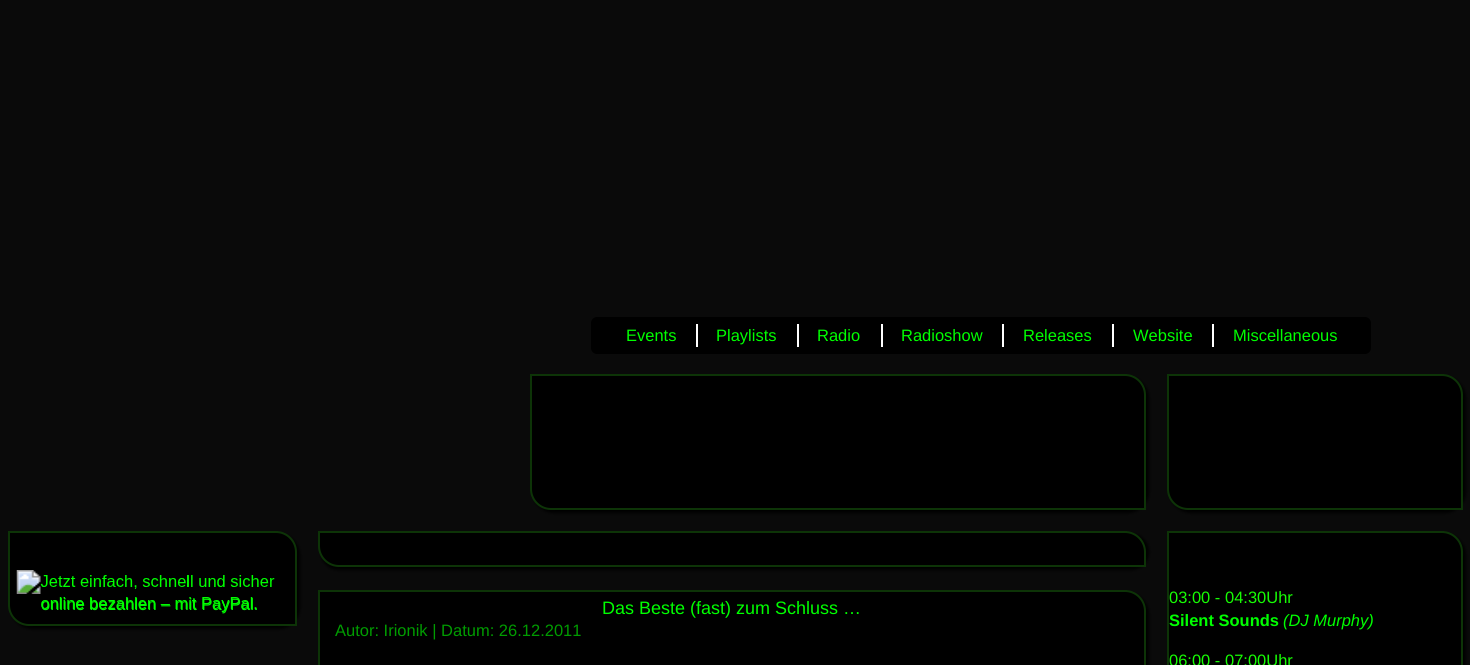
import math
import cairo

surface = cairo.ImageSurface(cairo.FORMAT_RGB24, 1470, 665)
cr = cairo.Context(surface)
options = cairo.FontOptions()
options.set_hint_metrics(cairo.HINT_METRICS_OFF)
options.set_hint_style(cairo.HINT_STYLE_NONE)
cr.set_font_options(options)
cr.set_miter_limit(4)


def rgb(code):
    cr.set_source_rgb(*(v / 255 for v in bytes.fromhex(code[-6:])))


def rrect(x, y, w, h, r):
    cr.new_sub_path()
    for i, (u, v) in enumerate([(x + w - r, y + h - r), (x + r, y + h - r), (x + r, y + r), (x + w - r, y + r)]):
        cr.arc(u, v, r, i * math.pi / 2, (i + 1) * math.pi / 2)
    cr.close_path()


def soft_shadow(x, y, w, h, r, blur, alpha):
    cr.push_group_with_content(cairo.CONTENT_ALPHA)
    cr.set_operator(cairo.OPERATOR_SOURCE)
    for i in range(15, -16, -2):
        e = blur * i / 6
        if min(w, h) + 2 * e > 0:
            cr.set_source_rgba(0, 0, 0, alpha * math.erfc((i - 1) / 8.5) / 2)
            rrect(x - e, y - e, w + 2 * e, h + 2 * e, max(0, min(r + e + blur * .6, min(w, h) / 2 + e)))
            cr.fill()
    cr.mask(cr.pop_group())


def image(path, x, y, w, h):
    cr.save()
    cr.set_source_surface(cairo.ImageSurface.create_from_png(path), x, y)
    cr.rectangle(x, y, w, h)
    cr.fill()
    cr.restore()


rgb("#0a0a0a")
cr.paint()
rgb("#000000")
rrect(591, 317, 780, 37, 6)
cr.fill()
for x, y, w, h, color in [
    (696, 324, 2, 23, "#ffffff"),
    (797, 324, 2, 23, "#ffffff"),
    (881, 324, 2, 23, "#ffffff"),
    (1002, 324, 2, 23, "#ffffff"),
    (1112, 324, 2, 23, "#ffffff"),
    (1212, 324, 2, 23, "#ffffff"),
]:
    rgb(color)
    cr.rectangle(x, y, w, h)
    cr.fill()
rgb("#000000")
soft_shadow(533, 377, 616, 136, 21, 1.5, 1)
rgb("#000000")
cr.new_path()
cr.move_to(531, 375)
cr.line_to(1125, 375)
cr.curve_to(1136, 375, 1145, 384, 1145, 395)
cr.line_to(1145, 509)
cr.line_to(551, 509)
cr.curve_to(540, 509, 531, 500, 531, 489)
cr.close_path()
cr.fill_preserve()
rgb("#0d3407")
cr.stroke()
rgb("#000000")
soft_shadow(1170, 377, 296, 136, 21, 1.5, 1)
rgb("#000000")
cr.new_path()
cr.move_to(1168, 375)
cr.line_to(1442, 375)
cr.curve_to(1453, 375, 1462, 384, 1462, 395)
cr.line_to(1462, 509)
cr.line_to(1188, 509)
cr.curve_to(1177, 509, 1168, 500, 1168, 489)
cr.close_path()
cr.fill_preserve()
rgb("#0d3407")
cr.stroke()
rgb("#000000")
soft_shadow(11, 534, 289, 95, 21, 1.5, 1)
rgb("#000000")
cr.new_path()
cr.move_to(9, 532)
cr.line_to(276, 532)
cr.curve_to(287, 532, 296, 541, 296, 552)
cr.line_to(296, 625)
cr.line_to(29, 625)
cr.curve_to(18, 625, 9, 616, 9, 605)
cr.close_path()
cr.fill_preserve()
rgb("#0d3407")
cr.stroke()
image("img/1.png", 16, 570, 259, 42)
rgb("#000000")
soft_shadow(321, 534, 828, 36, 21, 1.5, 1)
rgb("#000000")
cr.new_path()
cr.move_to(319, 532)
cr.line_to(1125, 532)
cr.curve_to(1136, 532, 1145, 541, 1145, 552)
cr.line_to(1145, 566)
cr.line_to(339, 566)
cr.curve_to(328, 566, 319, 557, 319, 546)
cr.close_path()
cr.fill_preserve()
rgb("#0d3407")
cr.stroke()
rgb("#000000")
soft_shadow(321, 593, 828, 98, 21, 1.5, 1)
rgb("#000000")
cr.new_path()
cr.move_to(319, 591)
cr.line_to(1125, 591)
cr.curve_to(1136, 591, 1145, 600, 1145, 611)
cr.line_to(1145, 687)
cr.line_to(339, 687)
cr.curve_to(328, 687, 319, 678, 319, 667)
cr.close_path()
cr.fill_preserve()
rgb("#0d3407")
cr.stroke()
rgb("#000000")
soft_shadow(1170, 534, 296, 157, 21, 1.5, 1)
rgb("#000000")
cr.new_path()
cr.move_to(1168, 532)
cr.line_to(1442, 532)
cr.curve_to(1453, 532, 1462, 541, 1462, 552)
cr.line_to(1462, 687)
cr.line_to(1188, 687)
cr.curve_to(1177, 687, 1168, 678, 1168, 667)
cr.close_path()
cr.fill_preserve()
rgb("#0d3407")
cr.stroke()
cr.select_font_face("Liberation Sans")
cr.set_font_size(16.5)
rgb("#00ff00")
for x, y, s in [
    (626, 341, "Events"),
    (716, 341, "Playlists"),
    (817, 341, "Radio"),
    (901, 341, "Radioshow"),
    (1023, 341, "Releases"),
    (1133, 341, "Website"),
    (1233, 341, "Miscellaneous"),
    (186, 587, "l"),
    (41, 610, "online bezahlen – mit PayPal."),
]:
    cr.move_to(x, y)
    cr.show_text(s)
cr.set_font_size(18)
cr.move_to(602, 614)
cr.show_text("Das Beste (fast) zum Schluss …")
cr.set_font_size(16.5)
rgb("#009c00")
cr.move_to(335, 636)
cr.show_text("Autor: Irionik | Datum: 26.12.2011")
rgb("#17fd04")
cr.move_to(1169, 603)
cr.show_text("03:00 - 04:30Uhr")
cr.select_font_face("Liberation Sans", cairo.FONT_SLANT_NORMAL, cairo.FONT_WEIGHT_BOLD)
rgb("#00ff00")
cr.move_to(1169, 626)
cr.show_text("Silent Sounds")
cr.select_font_face("Liberation Sans", cairo.FONT_SLANT_ITALIC)
cr.move_to(1283, 626)
cr.show_text("(DJ Murphy)")
cr.select_font_face("Liberation Sans")
rgb("#17fd04")
cr.move_to(1169, 666)
cr.show_text("06:00 - 07:00Uhr")
surface.write_to_png("page.png")
